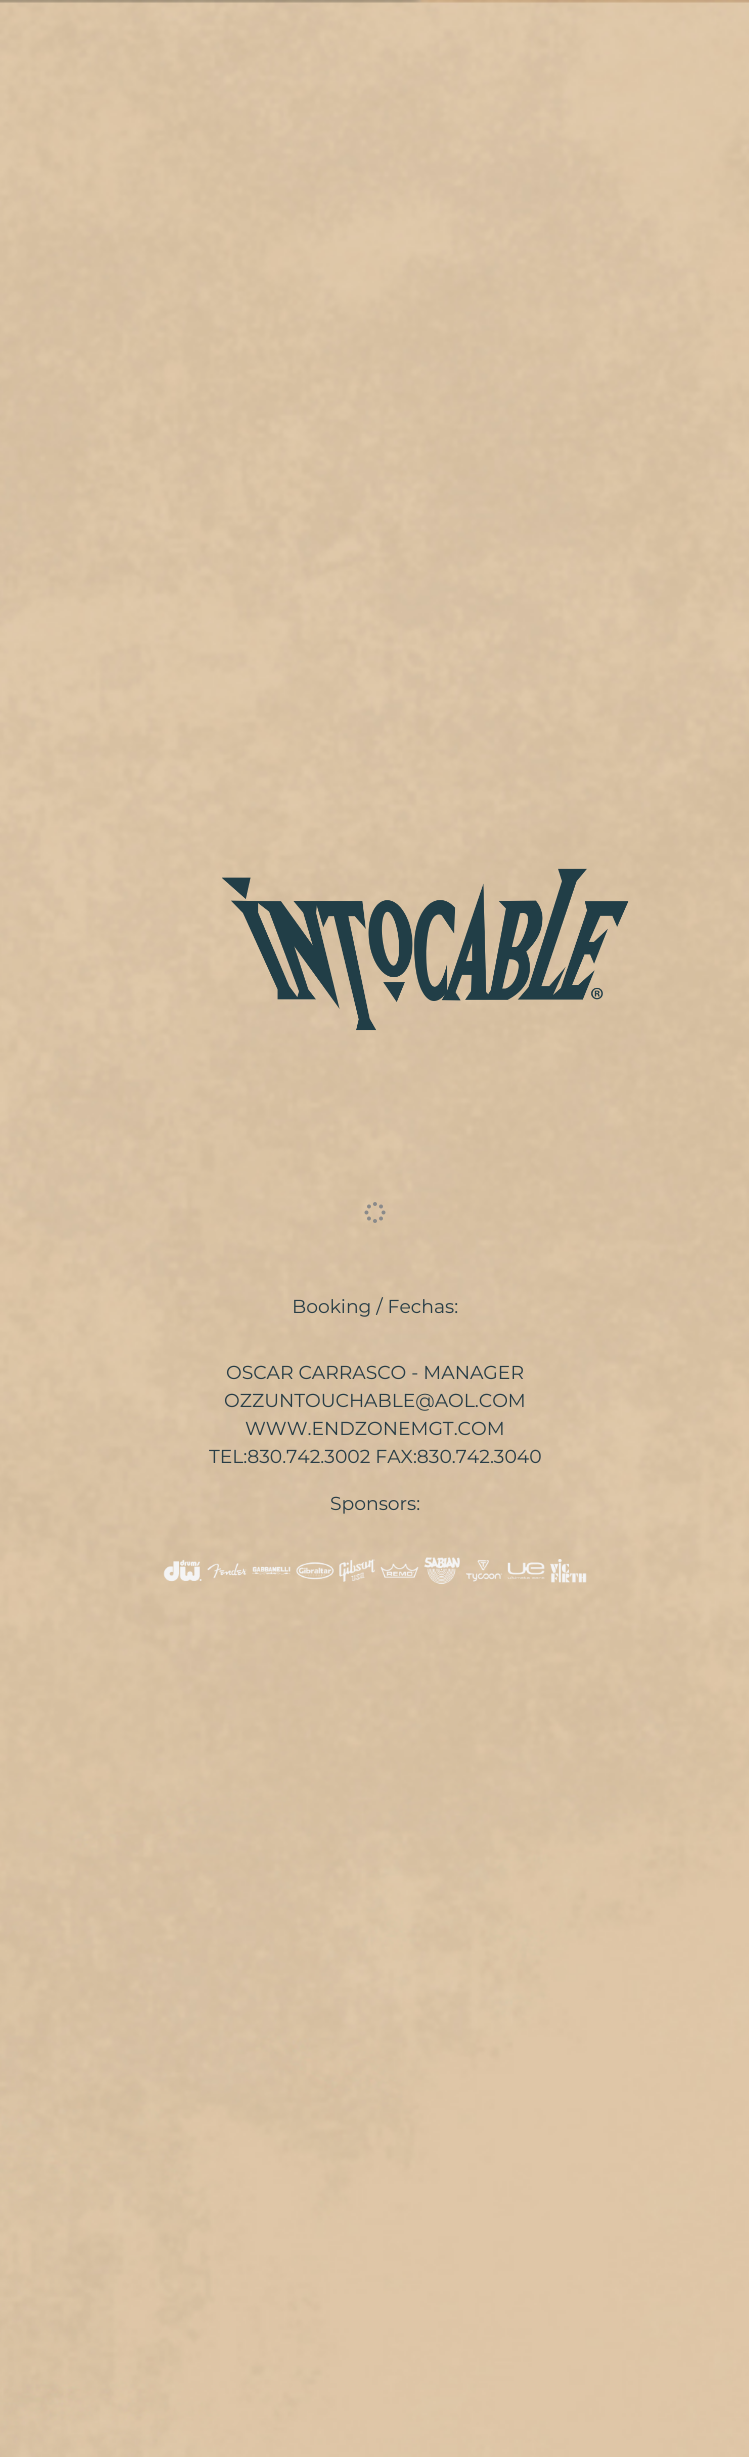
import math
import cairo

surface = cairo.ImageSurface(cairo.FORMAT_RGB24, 749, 2457)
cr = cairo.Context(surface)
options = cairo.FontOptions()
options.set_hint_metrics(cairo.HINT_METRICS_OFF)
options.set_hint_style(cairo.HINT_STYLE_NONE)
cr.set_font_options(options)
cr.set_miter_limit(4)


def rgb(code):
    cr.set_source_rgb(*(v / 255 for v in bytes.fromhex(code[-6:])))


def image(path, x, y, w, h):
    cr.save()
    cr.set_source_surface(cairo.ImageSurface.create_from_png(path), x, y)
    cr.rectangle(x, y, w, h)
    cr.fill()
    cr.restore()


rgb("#ffffff")
cr.paint()
image("img/1.png", 0, 0, 749, 2457)
image("img/2.png", 222, 868, 407, 163)
image("img/3.png", 364, 1202, 22, 21)
image("img/4.png", 163, 1557, 424, 27)
cr.select_font_face("Montserrat")
cr.set_font_size(18.75)
rgb("#283d46")
for x, y, s in [
    (292, 1313, "Booking / Fechas:"),
    (226, 1379, "OSCAR CARRASCO - MANAGER"),
    (224, 1407, "OZZUNTOUCHABLE@AOL.COM"),
    (245, 1435, "WWW.ENDZONEMGT.COM"),
    (209, 1463, "TEL:830.742.3002 FAX:830.742.3040"),
    (330, 1510, "Sponsors:"),
]:
    cr.move_to(x, y)
    cr.show_text(s)
surface.write_to_png("page.png")
